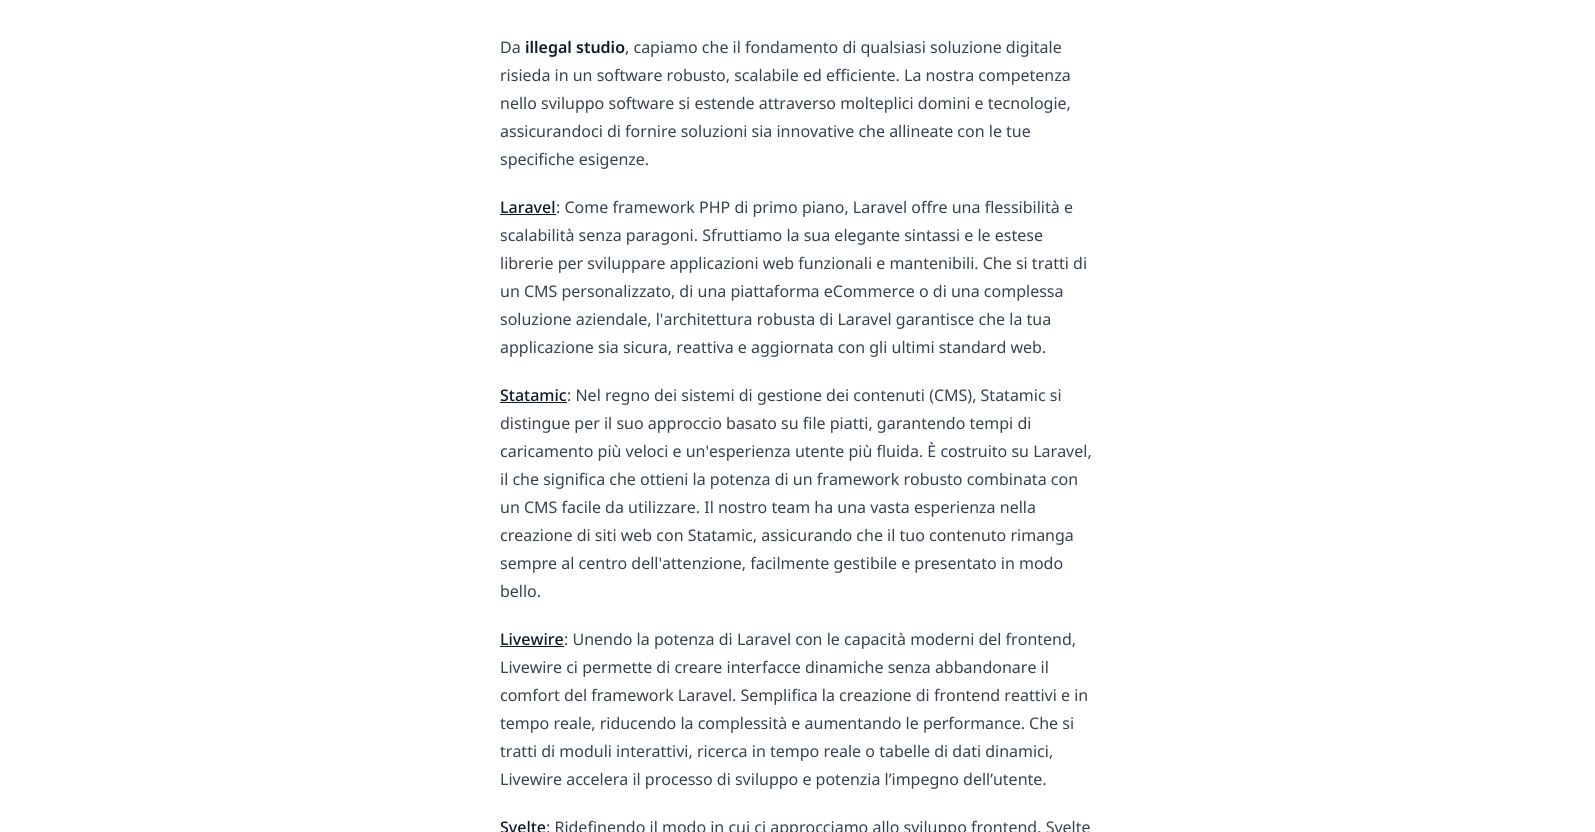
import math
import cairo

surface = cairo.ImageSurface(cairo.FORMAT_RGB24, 1595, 832)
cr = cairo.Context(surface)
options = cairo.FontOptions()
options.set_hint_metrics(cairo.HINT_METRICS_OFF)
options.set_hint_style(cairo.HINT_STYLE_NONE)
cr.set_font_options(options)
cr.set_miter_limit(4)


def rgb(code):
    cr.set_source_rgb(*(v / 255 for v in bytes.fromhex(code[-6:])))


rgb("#ffffff")
cr.paint()
for x, y, w, h, color in [
    (500, 214, 56, 1, "#111827"),
    (500, 402, 67, 1, "#111827"),
    (500, 646, 64, 1, "#111827"),
]:
    rgb(color)
    cr.rectangle(x, y, w, h)
    cr.fill()
cr.select_font_face("Noto Sans")
cr.set_font_size(16)
rgb("#374151")
cr.move_to(500, 53)
cr.show_text("Da")
cr.select_font_face("Noto Sans SemiBold")
rgb("#111827")
cr.move_to(525, 53)
cr.show_text("illegal studio")
cr.select_font_face("Noto Sans")
rgb("#374151")
for x, y, s in [
    (625, 53, ", capiamo che il fondamento di qualsiasi soluzione digitale"),
    (500, 81, "risieda in un software robusto, scalabile ed efficiente. La nostra competenza"),
    (500, 109, "nello sviluppo software si estende attraverso molteplici domini e tecnologie,"),
    (500, 137, "assicurandoci di fornire soluzioni sia innovative che allineate con le tue"),
    (500, 165, "specifiche esigenze."),
]:
    cr.move_to(x, y)
    cr.show_text(s)
cr.select_font_face("Noto Sans Medium")
rgb("#111827")
cr.move_to(500, 213)
cr.show_text("Laravel")
cr.select_font_face("Noto Sans")
rgb("#374151")
for x, y, s in [
    (556, 213, ": Come framework PHP di primo piano, Laravel offre una flessibilità e"),
    (500, 241, "scalabilità senza paragoni. Sfruttiamo la sua elegante sintassi e le estese"),
    (500, 269, "librerie per sviluppare applicazioni web funzionali e mantenibili. Che si tratti di"),
    (500, 297, "un CMS personalizzato, di una piattaforma eCommerce o di una complessa"),
    (500, 325, "soluzione aziendale, l'architettura robusta di Laravel garantisce che la tua"),
    (500, 353, "applicazione sia sicura, reattiva e aggiornata con gli ultimi standard web."),
]:
    cr.move_to(x, y)
    cr.show_text(s)
cr.select_font_face("Noto Sans Medium")
rgb("#111827")
cr.move_to(500, 401)
cr.show_text("Statamic")
cr.select_font_face("Noto Sans")
rgb("#374151")
for x, y, s in [
    (567, 401, ": Nel regno dei sistemi di gestione dei contenuti (CMS), Statamic si"),
    (500, 429, "distingue per il suo approccio basato su file piatti, garantendo tempi di"),
    (500, 457, "caricamento più veloci e un'esperienza utente più fluida. È costruito su Laravel,"),
    (500, 485, "il che significa che ottieni la potenza di un framework robusto combinata con"),
    (500, 513, "un CMS facile da utilizzare. Il nostro team ha una vasta esperienza nella"),
    (500, 541, "creazione di siti web con Statamic, assicurando che il tuo contenuto rimanga"),
    (500, 569, "sempre al centro dell'attenzione, facilmente gestibile e presentato in modo"),
    (500, 597, "bello."),
]:
    cr.move_to(x, y)
    cr.show_text(s)
cr.select_font_face("Noto Sans Medium")
rgb("#111827")
cr.move_to(500, 645)
cr.show_text("Livewire")
cr.select_font_face("Noto Sans")
rgb("#374151")
for x, y, s in [
    (564, 645, ": Unendo la potenza di Laravel con le capacità moderni del frontend,"),
    (500, 673, "Livewire ci permette di creare interfacce dinamiche senza abbandonare il"),
    (500, 701, "comfort del framework Laravel. Semplifica la creazione di frontend reattivi e in"),
    (500, 729, "tempo reale, riducendo la complessità e aumentando le performance. Che si"),
    (500, 757, "tratti di moduli interattivi, ricerca in tempo reale o tabelle di dati dinamici,"),
    (500, 785, "Livewire accelera il processo di sviluppo e potenzia l’impegno dell’utente."),
]:
    cr.move_to(x, y)
    cr.show_text(s)
cr.select_font_face("Noto Sans Medium")
rgb("#111827")
cr.move_to(500, 833)
cr.show_text("Svelte")
cr.select_font_face("Noto Sans")
rgb("#374151")
cr.move_to(546, 833)
cr.show_text(": Ridefinendo il modo in cui ci approcciamo allo sviluppo frontend, Svelte")
surface.write_to_png("page.png")
